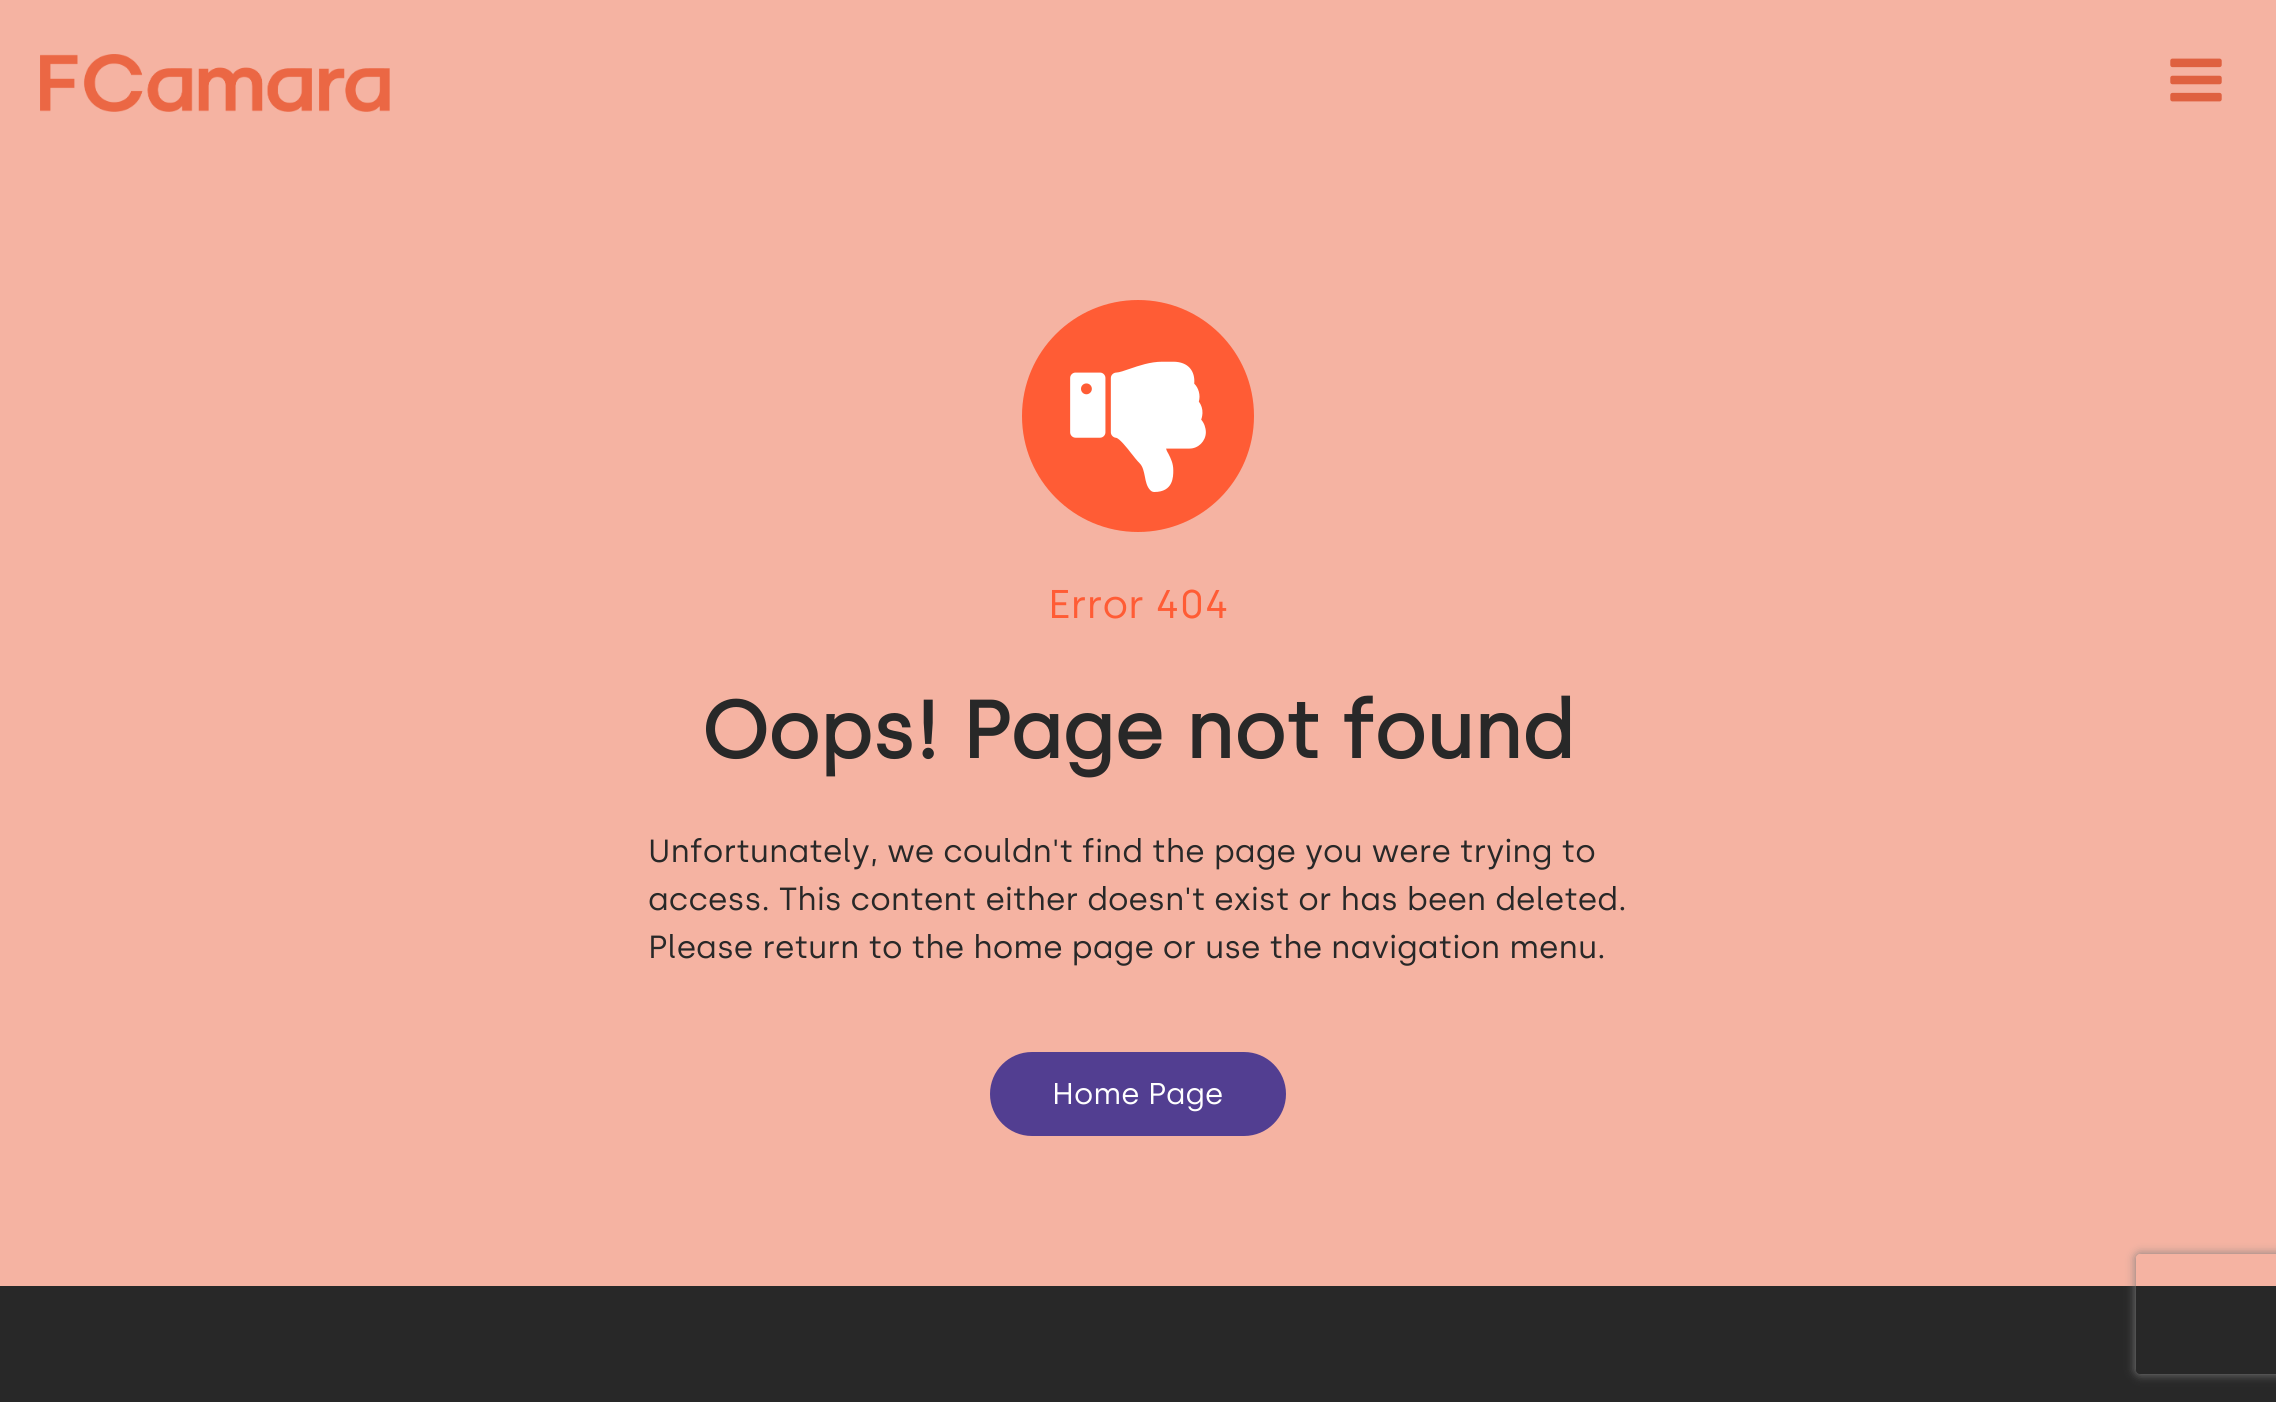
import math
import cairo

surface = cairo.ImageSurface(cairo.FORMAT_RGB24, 2276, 1402)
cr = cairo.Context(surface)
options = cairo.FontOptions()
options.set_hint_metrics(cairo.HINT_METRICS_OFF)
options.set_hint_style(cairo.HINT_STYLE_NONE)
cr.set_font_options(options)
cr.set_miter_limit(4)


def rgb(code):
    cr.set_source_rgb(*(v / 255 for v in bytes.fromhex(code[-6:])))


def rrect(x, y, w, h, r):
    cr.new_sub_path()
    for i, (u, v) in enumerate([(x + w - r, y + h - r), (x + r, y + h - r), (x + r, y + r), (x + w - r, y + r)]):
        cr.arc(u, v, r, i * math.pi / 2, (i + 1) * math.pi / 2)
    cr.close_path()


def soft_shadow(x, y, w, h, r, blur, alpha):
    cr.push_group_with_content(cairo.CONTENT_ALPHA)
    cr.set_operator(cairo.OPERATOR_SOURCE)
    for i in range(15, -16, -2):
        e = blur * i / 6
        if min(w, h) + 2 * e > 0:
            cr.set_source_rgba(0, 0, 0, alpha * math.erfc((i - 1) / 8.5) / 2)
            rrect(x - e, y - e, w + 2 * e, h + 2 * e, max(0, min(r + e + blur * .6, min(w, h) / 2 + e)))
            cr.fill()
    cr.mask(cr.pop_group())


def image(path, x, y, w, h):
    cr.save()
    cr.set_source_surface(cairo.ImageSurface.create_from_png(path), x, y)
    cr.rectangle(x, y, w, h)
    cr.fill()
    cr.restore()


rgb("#f5b3a2")
cr.paint()
image("img/1.png", 40, 54, 350, 58)
image("img/2.png", 2170, 58, 52, 44)
rgb("#ff5c35")
cr.arc(1138, 416, 116, 0, 2 * math.pi)
cr.fill()
image("img/3.png", 1070, 361, 136, 131)
rgb("#523e91")
rrect(991, 1053, 294, 82, 41)
cr.fill_preserve()
cr.stroke()
rgb("#282828")
cr.rectangle(0, 1286, 2276, 116)
cr.fill()
cr.save()
cr.set_fill_rule(cairo.FILL_RULE_EVEN_ODD)
cr.new_path()
cr.move_to(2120, 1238)
cr.line_to(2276, 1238)
cr.line_to(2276, 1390)
cr.line_to(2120, 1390)
cr.close_path()
cr.move_to(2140, 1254)
cr.line_to(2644, 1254)
cr.curve_to(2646, 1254, 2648, 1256, 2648, 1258)
cr.line_to(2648, 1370)
cr.curve_to(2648, 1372, 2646, 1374, 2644, 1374)
cr.line_to(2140, 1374)
cr.curve_to(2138, 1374, 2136, 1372, 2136, 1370)
cr.line_to(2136, 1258)
cr.curve_to(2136, 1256, 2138, 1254, 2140, 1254)
cr.close_path()
cr.clip()
rgb("#808080")
soft_shadow(2136, 1254, 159, 120, 4, 5, 1)
cr.restore()
cr.select_font_face("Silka")
cr.set_font_size(40)
rgb("#ff5c35")
cr.move_to(1048, 618)
cr.show_text("Error 404")
cr.select_font_face("Silka", cairo.FONT_SLANT_NORMAL, cairo.FONT_WEIGHT_BOLD)
cr.set_font_size(80)
rgb("#282828")
cr.move_to(702, 758)
cr.show_text("Oops! Page not found")
cr.select_font_face("Silka")
cr.set_font_size(32)
for x, y, s in [
    (648, 862, "Unfortunately, we couldn't find the page you were trying to"),
    (648, 910, "access. This content either doesn't exist or has been deleted."),
    (648, 958, "Please return to the home page or use the navigation menu."),
]:
    cr.move_to(x, y)
    cr.show_text(s)
cr.set_font_size(30)
rgb("#ffffff")
cr.move_to(1052, 1104)
cr.show_text("Home Page")
surface.write_to_png("page.png")
